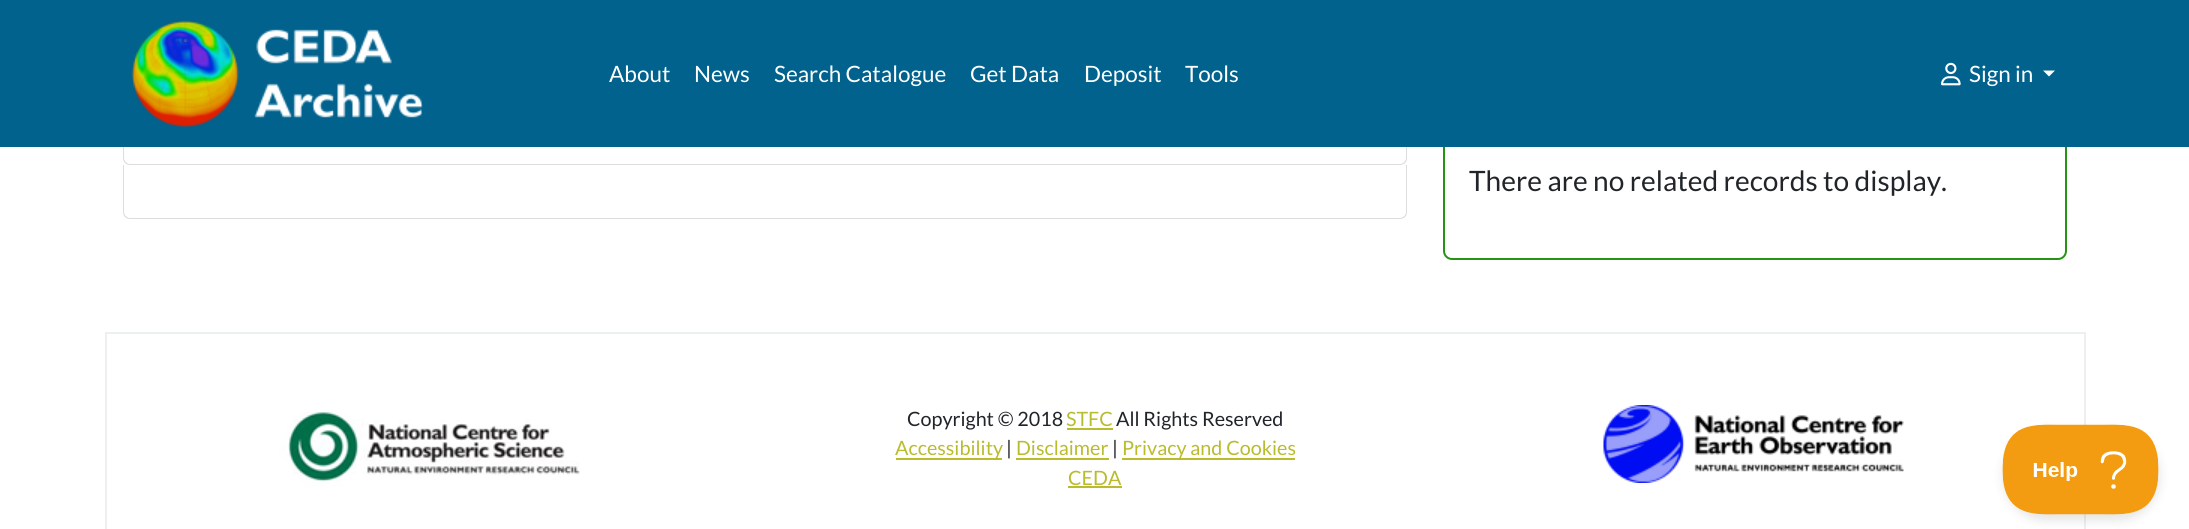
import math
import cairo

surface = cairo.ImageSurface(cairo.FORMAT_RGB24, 2189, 529)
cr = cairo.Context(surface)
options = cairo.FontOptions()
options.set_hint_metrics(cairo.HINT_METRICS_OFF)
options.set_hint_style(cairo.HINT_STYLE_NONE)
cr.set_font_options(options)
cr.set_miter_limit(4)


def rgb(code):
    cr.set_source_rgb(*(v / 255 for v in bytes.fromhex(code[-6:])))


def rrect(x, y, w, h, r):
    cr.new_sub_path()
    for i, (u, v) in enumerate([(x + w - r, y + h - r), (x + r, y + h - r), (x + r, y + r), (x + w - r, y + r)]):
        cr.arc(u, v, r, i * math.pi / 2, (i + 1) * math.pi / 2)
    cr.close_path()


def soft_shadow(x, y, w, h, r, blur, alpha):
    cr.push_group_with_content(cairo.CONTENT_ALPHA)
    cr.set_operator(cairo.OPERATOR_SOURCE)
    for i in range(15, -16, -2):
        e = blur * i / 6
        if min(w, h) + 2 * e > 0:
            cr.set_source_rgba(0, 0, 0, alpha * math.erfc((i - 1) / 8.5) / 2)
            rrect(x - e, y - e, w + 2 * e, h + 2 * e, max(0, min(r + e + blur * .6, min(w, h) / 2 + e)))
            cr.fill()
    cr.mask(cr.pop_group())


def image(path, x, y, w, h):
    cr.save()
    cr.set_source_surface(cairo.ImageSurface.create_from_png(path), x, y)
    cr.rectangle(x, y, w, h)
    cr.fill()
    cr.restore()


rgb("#ffffff")
cr.paint()
rgb("#dddddd")
cr.set_fill_rule(cairo.FILL_RULE_EVEN_ODD)
cr.new_path()
cr.move_to(123, 111)
cr.line_to(1407, 111)
cr.line_to(1407, 158)
cr.curve_to(1407, 162, 1404, 165, 1400, 165)
cr.line_to(130, 165)
cr.curve_to(126, 165, 123, 162, 123, 158)
cr.close_path()
cr.move_to(124, 111)
cr.line_to(1406, 111)
cr.line_to(1406, 158)
cr.curve_to(1406, 161, 1403, 164, 1400, 164)
cr.line_to(130, 164)
cr.curve_to(127, 164, 124, 161, 124, 158)
cr.close_path()
cr.fill()
rrect(1444, 81, 622, 178, 8)
rgb("#269314")
cr.stroke()
rgb("#00628d")
cr.rectangle(0, 0, 2189, 147)
cr.fill()
image("img/1.png", 131, 20, 292, 108)
image("img/2.png", 1941, 62, 20, 24)
rgb("#ffffff")
cr.set_fill_rule(cairo.FILL_RULE_WINDING)
cr.new_path()
cr.move_to(2043, 70.5)
cr.line_to(2055, 70.5)
cr.line_to(2049, 76.5)
cr.close_path()
cr.fill()
rgb("#dddddd")
cr.set_fill_rule(cairo.FILL_RULE_EVEN_ODD)
cr.new_path()
cr.move_to(123, 165)
cr.line_to(1407, 165)
cr.line_to(1407, 212)
cr.curve_to(1407, 216, 1404, 219, 1400, 219)
cr.line_to(130, 219)
cr.curve_to(126, 219, 123, 216, 123, 212)
cr.close_path()
cr.move_to(124, 165)
cr.line_to(1406, 165)
cr.line_to(1406, 212)
cr.curve_to(1406, 215, 1403, 218, 1400, 218)
cr.line_to(130, 218)
cr.curve_to(127, 218, 124, 215, 124, 212)
cr.close_path()
cr.fill()
for x, y, w, h, color in [
    (105, 332, 1980, 2, "#ecf0f1"),
    (2084, 332, 2, 197, "#ecf0f1"),
    (105, 332, 2, 197, "#ecf0f1"),
]:
    rgb(color)
    cr.rectangle(x, y, w, h)
    cr.fill()
image("img/3.png", 279, 412, 301, 75)
for x, y, w, h, color in [
    (1067, 428, 46, 2, "#b9bc2d"),
    (896, 458, 106, 2, "#b9bc2d"),
    (1016, 458, 93, 2, "#b9bc2d"),
    (1122, 458, 173, 2, "#b9bc2d"),
    (1068, 486, 54, 2, "#b9bc2d"),
]:
    rgb(color)
    cr.rectangle(x, y, w, h)
    cr.fill()
image("img/4.png", 1603, 405, 301, 78)
rgb("#000000")
soft_shadow(2003, 431, 157, 90, 45, 5, 0.1)
image("img/5.png", 2002, 424, 157, 91)
cr.select_font_face("Lato")
cr.set_font_size(22.5)
rgb("#ffffff")
for x, y, s in [
    (609, 82, "About"),
    (694, 82, "News"),
    (774, 82, "Search Catalogue"),
    (970, 82, "Get Data"),
    (1084, 82, "Deposit"),
    (1185, 82, "Tools"),
    (1969, 82, "Sign in"),
]:
    cr.move_to(x, y)
    cr.show_text(s)
cr.set_font_size(28.1)
rgb("#212529")
cr.move_to(1469, 191)
cr.show_text("There are no related records to display.")
cr.set_font_size(19.75)
cr.move_to(907, 426)
cr.show_text("Copyright © 2018")
rgb("#b9bc2d")
cr.move_to(1066, 426)
cr.show_text("STFC")
rgb("#212529")
cr.move_to(1116, 426)
cr.show_text("All Rights Reserved")
rgb("#b9bc2d")
cr.move_to(895, 455)
cr.show_text("Accessibility")
rgb("#212529")
cr.move_to(1006, 455)
cr.show_text("|")
rgb("#b9bc2d")
cr.move_to(1016, 455)
cr.show_text("Disclaimer")
rgb("#212529")
cr.move_to(1112, 455)
cr.show_text("|")
rgb("#b9bc2d")
cr.move_to(1122, 455)
cr.show_text("Privacy and Cookies")
cr.move_to(1068, 485)
cr.show_text("CEDA")
surface.write_to_png("page.png")
